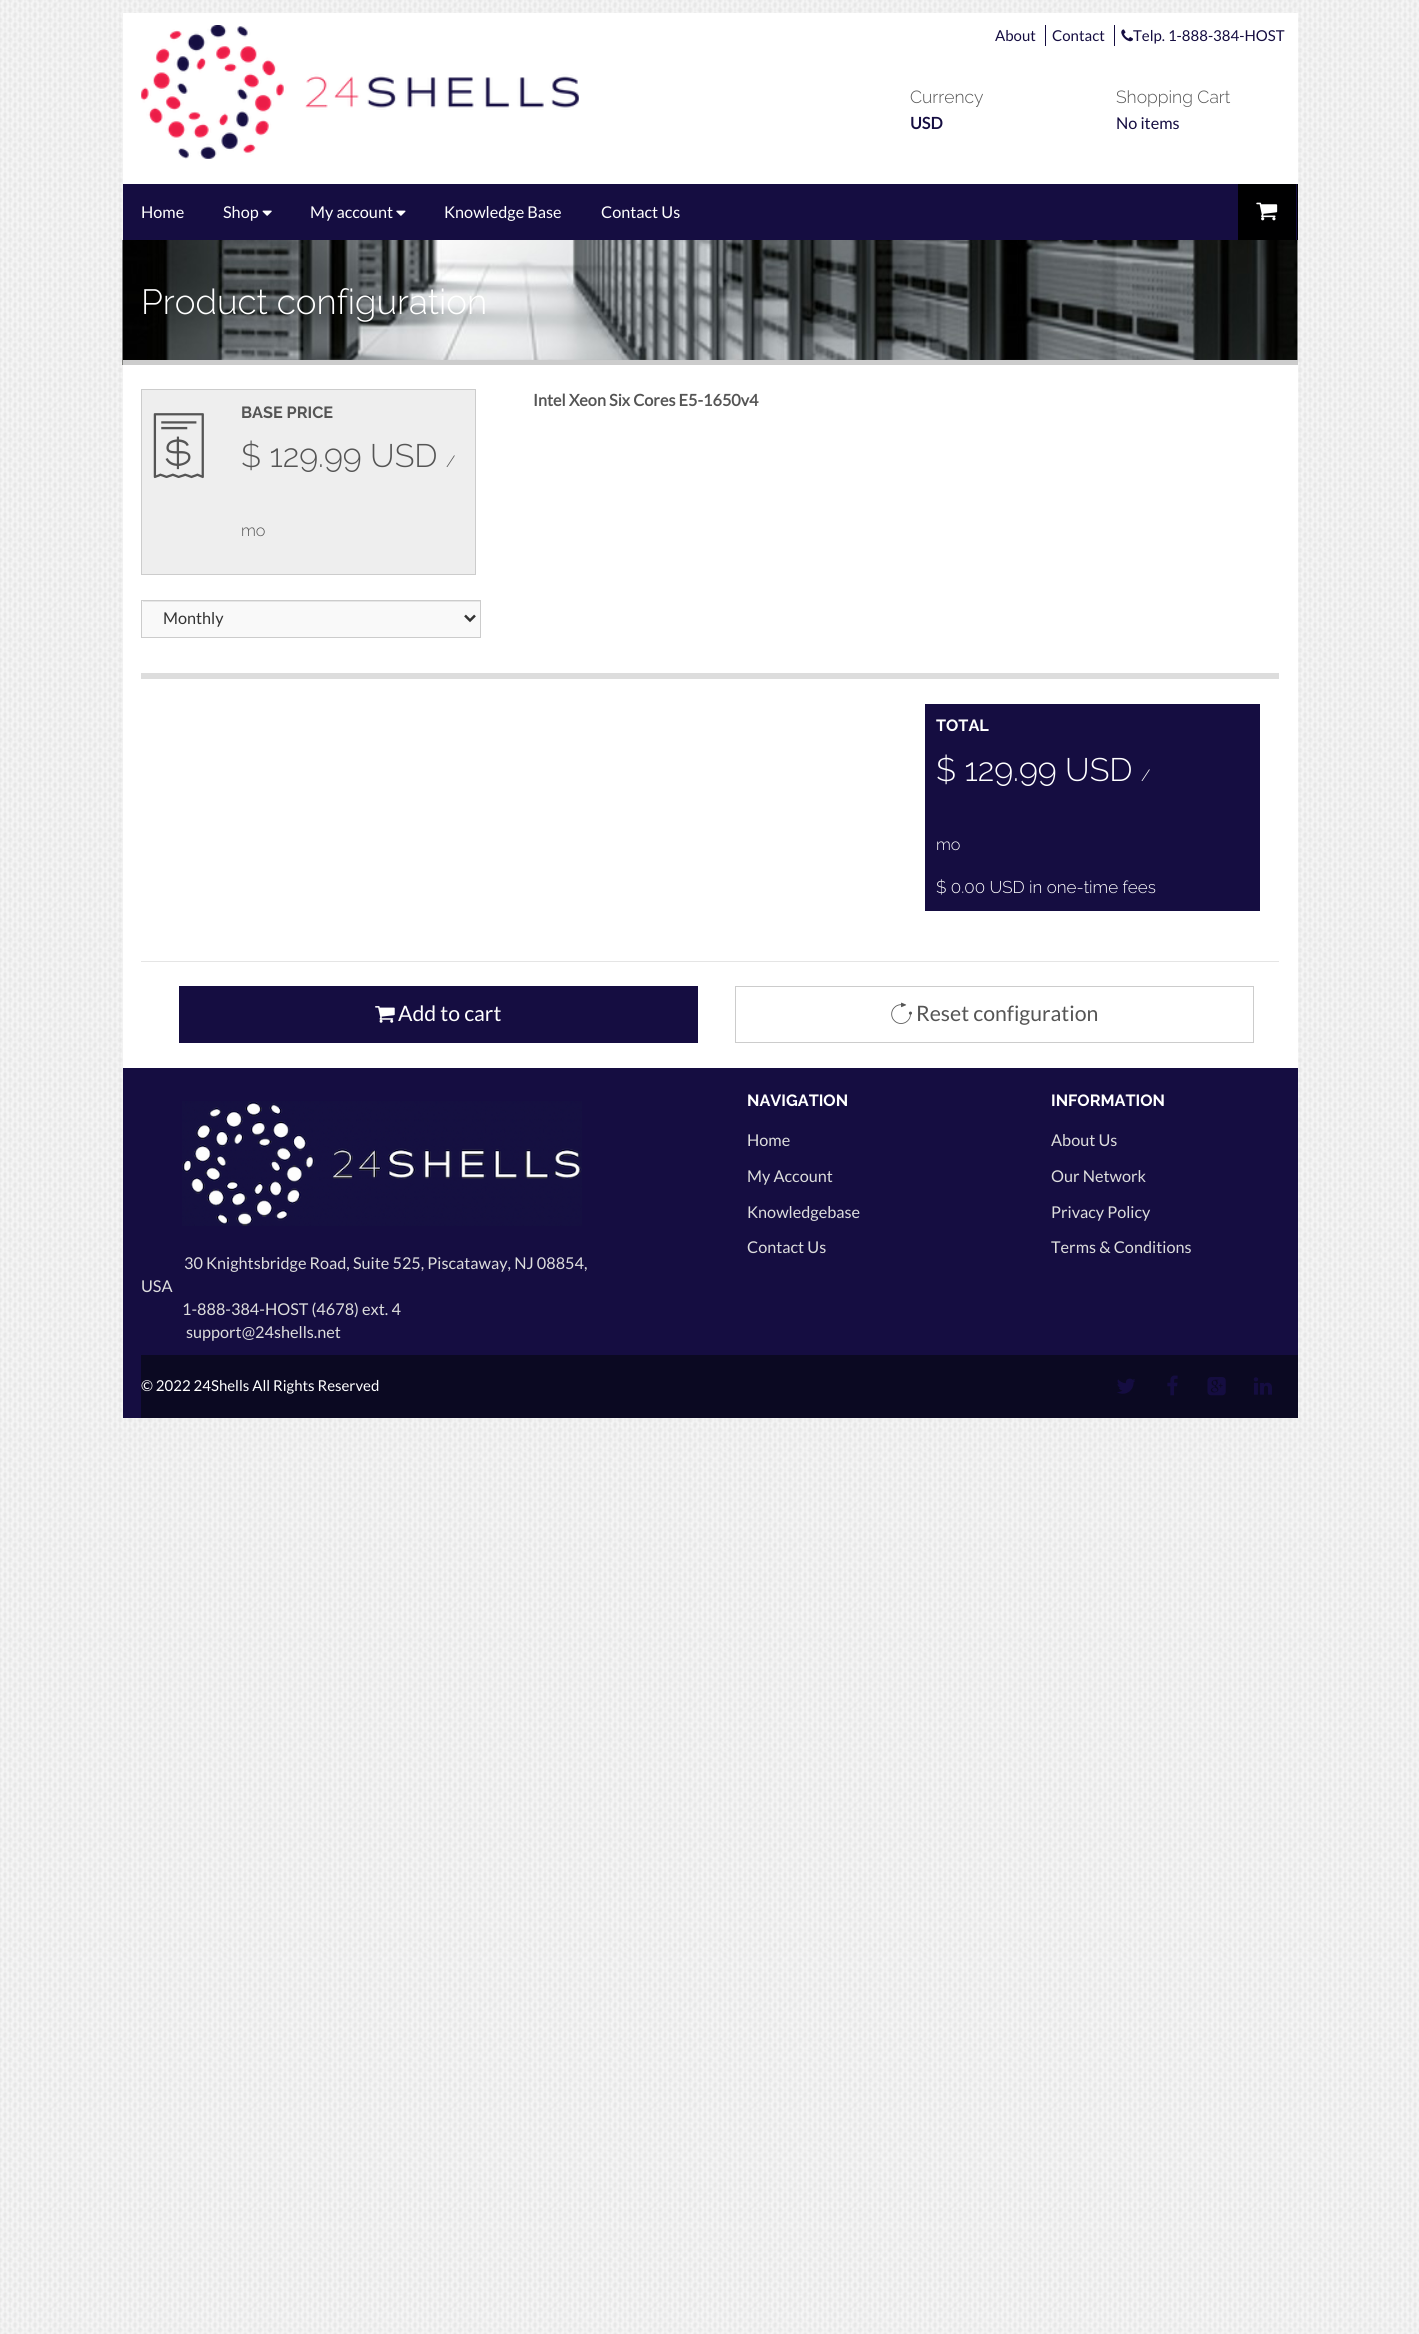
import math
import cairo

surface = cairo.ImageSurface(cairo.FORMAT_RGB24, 1419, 2334)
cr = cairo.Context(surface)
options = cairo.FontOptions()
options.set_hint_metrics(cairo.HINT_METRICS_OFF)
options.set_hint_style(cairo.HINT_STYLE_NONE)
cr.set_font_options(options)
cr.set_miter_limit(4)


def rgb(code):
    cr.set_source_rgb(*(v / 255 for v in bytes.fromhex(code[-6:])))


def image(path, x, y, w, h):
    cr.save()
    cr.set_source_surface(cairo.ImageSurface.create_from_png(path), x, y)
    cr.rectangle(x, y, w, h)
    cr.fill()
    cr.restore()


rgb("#ffffff")
cr.paint()
image("img/1.png", 0, 0, 1419, 2334)
rgb("#ffffff")
cr.rectangle(123, 13, 1175, 1055)
cr.fill()
image("img/2.png", 141, 25, 438, 134)
rgb("#150d41")
cr.rectangle(1045, 25, 1, 21)
cr.fill()
cr.rectangle(1114, 25, 1, 21)
cr.fill()
image("img/3.png", 1121, 29, 12, 13)
cr.rectangle(123, 184, 1115, 56)
cr.fill()
image("img/4.png", 262, 210, 10, 6)
image("img/5.png", 396, 210, 10, 6)
rgb("#000001")
cr.rectangle(1238, 184, 60, 56)
cr.fill()
rgb("#150d41")
cr.rectangle(1296, 184, 1, 56)
cr.fill()
image("img/6.png", 1256, 202, 22, 19)
image("img/7.png", 122, 240, 1176, 125)
rgb("#cccccc")
cr.rectangle(123, 360, 1175, 5)
cr.fill()
rgb("#eeeeee")
cr.rectangle(141.5, 389.5, 334, 185)
cr.fill_preserve()
rgb("#cccccc")
cr.set_line_width(1)
cr.stroke()
image("img/8.png", 153, 413, 51, 66)
rgb("#f9f9f9")
cr.rectangle(142, 601, 338, 36)
cr.fill()
rgb("#e6e6e6")
cr.rectangle(143, 601, 337, 1)
cr.fill()
cr.rectangle(141.5, 600.5, 339, 37)
rgb("#cccccc")
cr.stroke()
cr.new_path()
cr.move_to(465, 615.5)
cr.line_to(470, 620.5)
cr.line_to(475, 615.5)
rgb("#333333")
cr.set_line_width(2.5)
cr.stroke()
for x, y, w, h, color in [
    (141, 673, 1138, 6, "#dddddd"),
    (925, 704, 335, 207, "#150d41"),
    (141, 961, 1138, 1, "#e5e5e5"),
    (179, 986, 519, 57, "#150d41"),
]:
    rgb(color)
    cr.rectangle(x, y, w, h)
    cr.fill()
image("img/9.png", 375, 1006, 20, 17)
cr.rectangle(735.5, 986.5, 518, 56)
rgb("#cccccc")
cr.set_line_width(1)
cr.stroke()
image("img/10.png", 891, 1002, 21, 22)
rgb("#150d41")
cr.rectangle(123, 1068, 1175, 350)
cr.fill()
image("img/11.png", 182, 1101, 400, 125)
rgb("#0b0922")
cr.rectangle(141, 1355, 1157, 63)
cr.fill()
image("img/12.png", 1117, 1378, 18, 16)
image("img/13.png", 1167, 1375, 11, 21)
image("img/14.png", 1207, 1377, 19, 19)
image("img/15.png", 1253, 1377, 19, 18)
cr.select_font_face("Lato")
cr.set_font_size(15)
rgb("#150d41")
for x, y, s in [
    (995, 41, "About"),
    (1052, 41, "Contact"),
    (1133, 41, "Telp. 1-888-384-HOST"),
]:
    cr.move_to(x, y)
    cr.show_text(s)
cr.select_font_face("Raleway Light")
cr.set_font_size(17.5)
rgb("#555555")
cr.move_to(910, 103)
cr.show_text("Currency")
cr.select_font_face("Lato", cairo.FONT_SLANT_NORMAL, cairo.FONT_WEIGHT_BOLD)
cr.set_font_size(16.25)
rgb("#150d41")
cr.move_to(910, 129)
cr.show_text("USD")
cr.select_font_face("Raleway Light")
cr.set_font_size(17.5)
rgb("#555555")
cr.move_to(1116, 103)
cr.show_text("Shopping Cart")
cr.select_font_face("Lato")
cr.set_font_size(16.25)
rgb("#150d41")
cr.move_to(1116, 129)
cr.show_text("No items")
rgb("#ffffff")
for x, y, s in [
    (141, 218, "Home"),
    (223, 218, "Shop"),
    (310, 218, "My account"),
    (444, 218, "Knowledge Base"),
    (601, 218, "Contact Us"),
]:
    cr.move_to(x, y)
    cr.show_text(s)
cr.select_font_face("Raleway Light")
cr.set_font_size(35)
cr.move_to(141, 314)
cr.show_text("Product configuration")
cr.select_font_face("Lato", cairo.FONT_SLANT_NORMAL, cairo.FONT_WEIGHT_BOLD)
cr.set_font_size(16.25)
rgb("#555555")
cr.move_to(533, 406)
cr.show_text("Intel Xeon Six Cores E5-1650v4")
cr.select_font_face("Raleway", cairo.FONT_SLANT_NORMAL, cairo.FONT_WEIGHT_BOLD)
cr.move_to(241, 418)
cr.show_text("BASE PRICE")
cr.select_font_face("Raleway Light")
cr.set_font_size(32.5)
cr.move_to(241, 467)
cr.show_text("$ 129.99 USD")
cr.set_font_size(16.25)
cr.move_to(446, 467)
cr.show_text("/")
cr.move_to(241, 536)
cr.show_text("mo")
cr.select_font_face("Lato")
rgb("#333333")
cr.move_to(163, 624)
cr.show_text("Monthly")
cr.select_font_face("Raleway", cairo.FONT_SLANT_NORMAL, cairo.FONT_WEIGHT_BOLD)
rgb("#ffffff")
cr.move_to(936, 731)
cr.show_text("TOTAL")
cr.select_font_face("Raleway Light")
cr.set_font_size(32.5)
cr.move_to(936, 781)
cr.show_text("$ 129.99 USD")
cr.set_font_size(16.25)
cr.move_to(1141, 781)
cr.show_text("/")
cr.move_to(936, 850)
cr.show_text("mo")
cr.set_font_size(17)
cr.move_to(936, 893)
cr.show_text("$ 0.00 USD in one-time fees")
cr.select_font_face("Lato")
cr.set_font_size(21.25)
cr.move_to(398, 1021)
cr.show_text("Add to cart")
rgb("#555555")
cr.move_to(916, 1021)
cr.show_text("Reset configuration")
cr.select_font_face("Raleway", cairo.FONT_SLANT_NORMAL, cairo.FONT_WEIGHT_BOLD)
cr.set_font_size(16.25)
rgb("#ffffff")
cr.move_to(747, 1106)
cr.show_text("NAVIGATION")
cr.select_font_face("Lato")
rgb("#dddddd")
for x, y, s in [
    (747, 1146, "Home"),
    (747, 1182, "My Account"),
    (747, 1218, "Knowledgebase"),
    (747, 1253, "Contact Us"),
]:
    cr.move_to(x, y)
    cr.show_text(s)
cr.select_font_face("Raleway", cairo.FONT_SLANT_NORMAL, cairo.FONT_WEIGHT_BOLD)
rgb("#ffffff")
cr.move_to(1051, 1106)
cr.show_text("INFORMATION")
cr.select_font_face("Lato")
rgb("#dddddd")
for x, y, s in [
    (1051, 1146, "About Us"),
    (1051, 1182, "Our Network"),
    (1051, 1218, "Privacy Policy"),
    (1051, 1253, "Terms & Conditions"),
    (184, 1269, "30 Knightsbridge Road, Suite 525, Piscataway, NJ 08854,"),
    (141, 1292, "USA"),
    (182, 1315, "1-888-384-HOST (4678) ext. 4"),
    (186, 1338, "support@24shells.net"),
]:
    cr.move_to(x, y)
    cr.show_text(s)
cr.set_font_size(15)
rgb("#ffffff")
cr.move_to(141, 1391)
cr.show_text("© 2022 24Shells All Rights Reserved")
surface.write_to_png("page.png")
